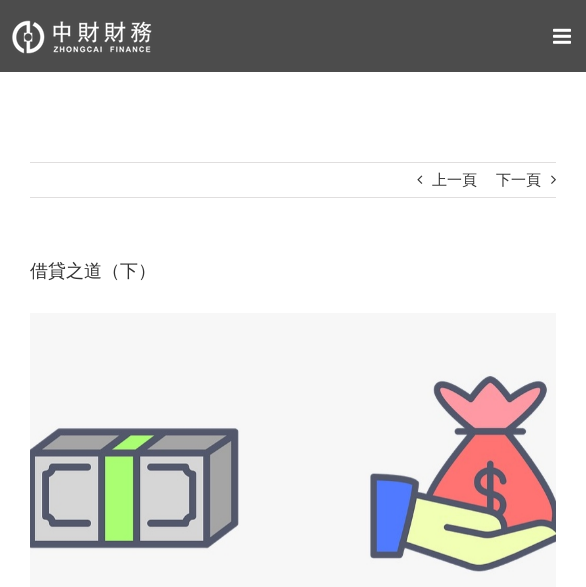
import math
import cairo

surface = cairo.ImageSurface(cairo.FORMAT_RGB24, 586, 587)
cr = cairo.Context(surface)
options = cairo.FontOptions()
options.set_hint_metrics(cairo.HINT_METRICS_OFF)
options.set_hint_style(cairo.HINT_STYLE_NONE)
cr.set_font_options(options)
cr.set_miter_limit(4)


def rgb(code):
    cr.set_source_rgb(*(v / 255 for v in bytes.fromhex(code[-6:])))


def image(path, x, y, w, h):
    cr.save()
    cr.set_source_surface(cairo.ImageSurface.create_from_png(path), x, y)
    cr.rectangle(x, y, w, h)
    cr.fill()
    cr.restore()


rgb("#ffffff")
cr.paint()
rgb("#4c4c4c")
cr.rectangle(0, 0, 586, 72)
cr.fill()
image("img/1.png", 12, 20, 140, 34)
image("img/2.png", 553, 28, 18, 16)
rgb("#e0dede")
cr.rectangle(30, 162, 526, 1)
cr.fill()
cr.rectangle(30, 197, 526, 1)
cr.fill()
image("img/3.png", 417, 175, 6, 9)
image("img/4.png", 551, 175, 5, 9)
image("img/5.png", 30, 313, 526, 274)
cr.select_font_face("WenQuanYi Zen Hei Medium")
cr.set_font_size(15)
rgb("#333333")
cr.move_to(432, 185)
cr.show_text("上一頁")
cr.move_to(496, 185)
cr.show_text("下一頁")
cr.set_font_size(18)
cr.move_to(30, 277)
cr.show_text("借貸之道（下）")
surface.write_to_png("page.png")
